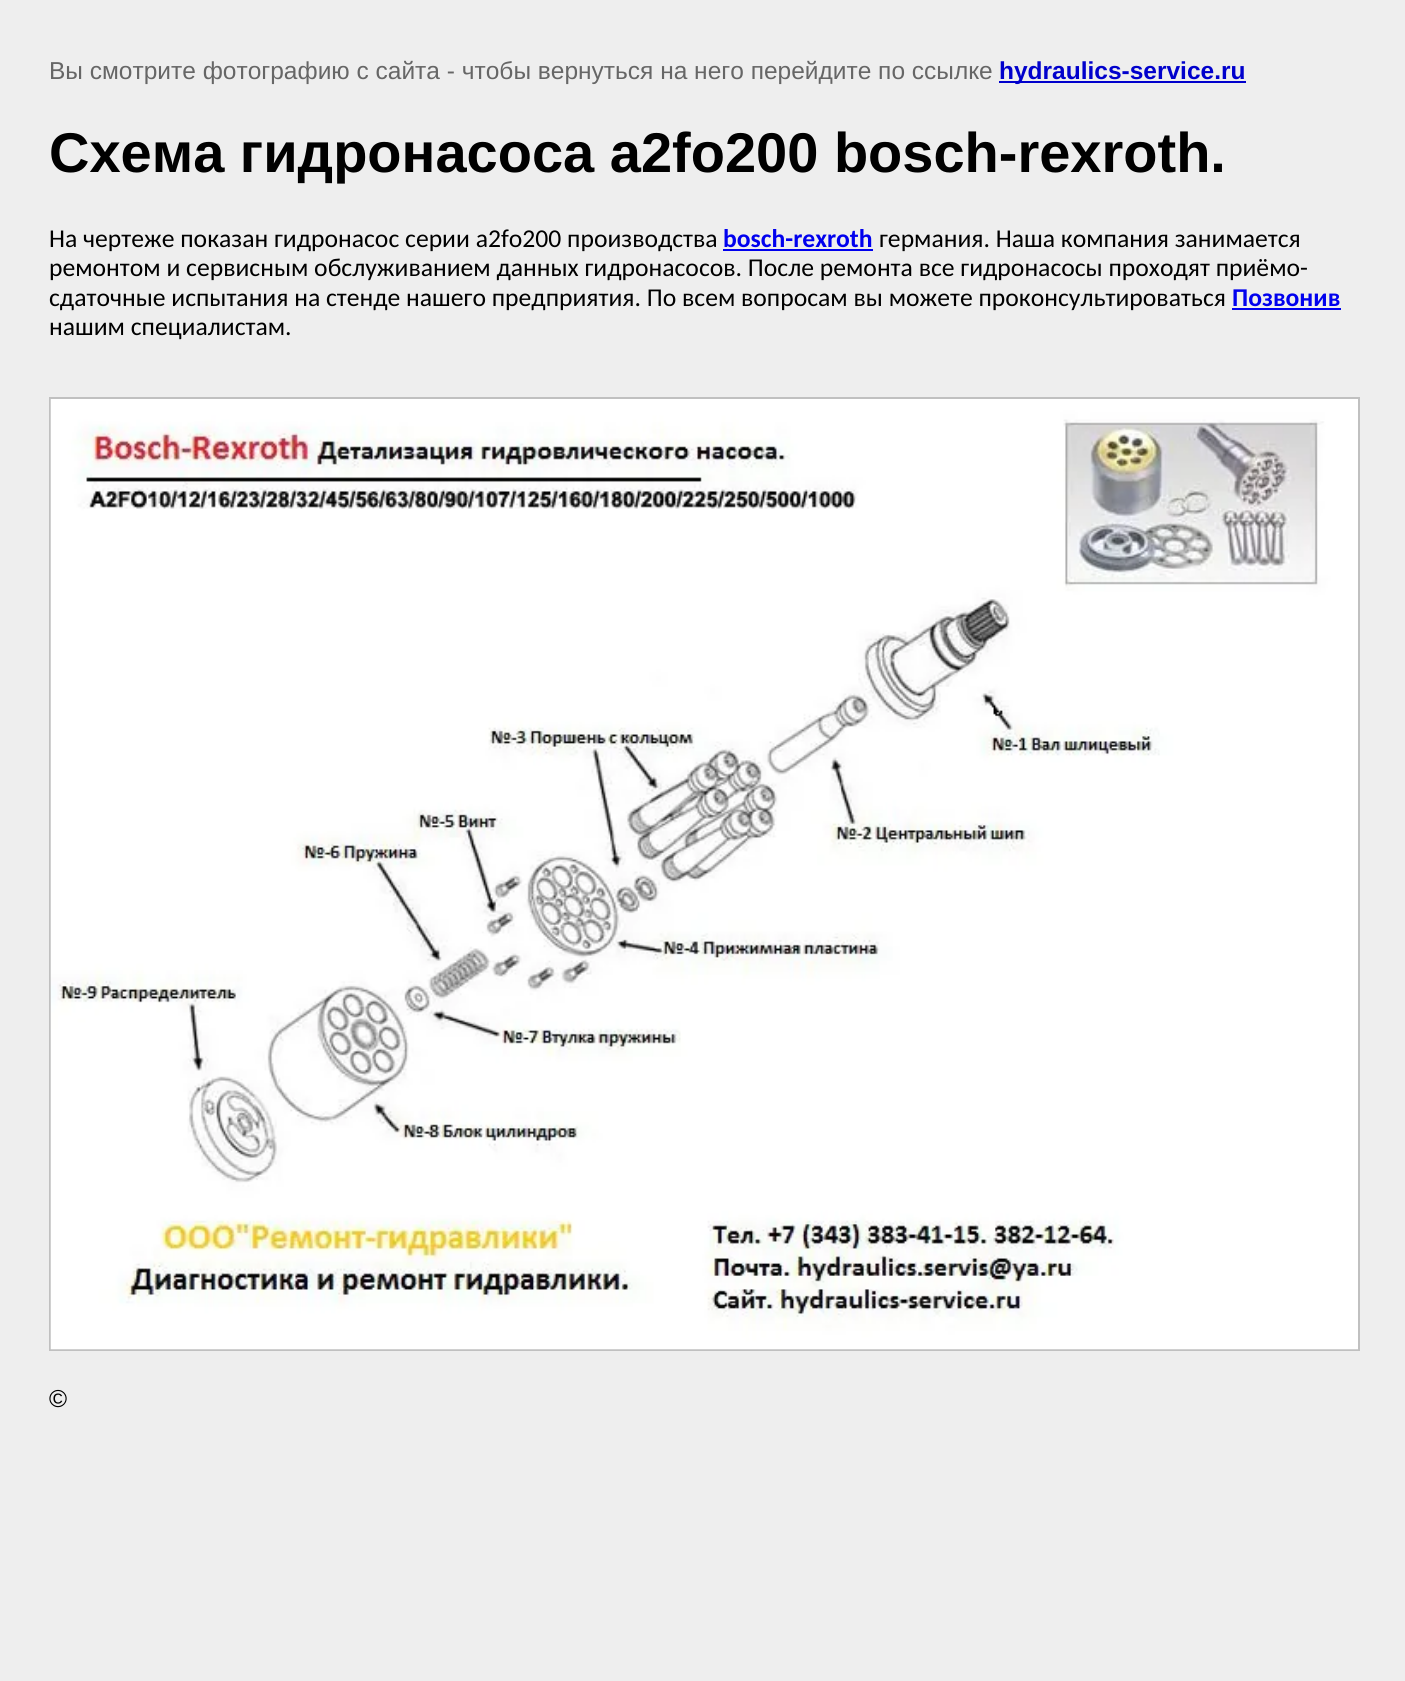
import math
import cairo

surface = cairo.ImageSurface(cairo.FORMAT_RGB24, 1405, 1681)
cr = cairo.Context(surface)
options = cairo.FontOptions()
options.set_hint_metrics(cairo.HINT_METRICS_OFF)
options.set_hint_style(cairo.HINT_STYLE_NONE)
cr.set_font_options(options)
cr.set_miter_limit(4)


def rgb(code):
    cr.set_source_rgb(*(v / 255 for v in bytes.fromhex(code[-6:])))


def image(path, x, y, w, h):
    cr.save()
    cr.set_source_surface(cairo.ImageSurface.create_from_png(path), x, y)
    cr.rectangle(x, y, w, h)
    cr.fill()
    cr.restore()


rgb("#eeeeee")
cr.paint()
for x, y, w, h, color in [
    (999, 81, 247, 2, "#0000cc"),
    (723, 249, 150, 2, "#0000ee"),
    (1232, 308, 109, 2, "#0000ee"),
]:
    rgb(color)
    cr.rectangle(x, y, w, h)
    cr.fill()
cr.rectangle(50, 398, 1309, 952)
rgb("#c0c0c0")
cr.stroke()
image("img/1.png", 50, 399, 1308, 951)
cr.select_font_face("Liberation Sans")
cr.set_font_size(24.5)
rgb("#666666")
cr.move_to(49, 79)
cr.show_text("Вы смотрите фотографию с сайта - чтобы вернуться на него перейдите по ссылке")
cr.select_font_face("Liberation Sans", cairo.FONT_SLANT_NORMAL, cairo.FONT_WEIGHT_BOLD)
rgb("#0000cc")
cr.move_to(999, 79)
cr.show_text("hydraulics-service.ru")
cr.set_font_size(56)
rgb("#000000")
cr.move_to(49, 172)
cr.show_text("Схема гидронасоса a2fo200 bosch-rexroth.")
cr.select_font_face("Carlito")
cr.set_font_size(25.65)
cr.move_to(49, 247)
cr.show_text("На чертеже показан гидронасос серии a2fo200 производства")
cr.select_font_face("Carlito", cairo.FONT_SLANT_NORMAL, cairo.FONT_WEIGHT_BOLD)
rgb("#0000ee")
cr.move_to(723, 247)
cr.show_text("bosch-rexroth")
cr.select_font_face("Carlito")
rgb("#000000")
for x, y, s in [
    (879, 247, "германия. Наша компания занимается"),
    (49, 276, "ремонтом и сервисным обслуживанием данных гидронасосов. После ремонта все гидронасосы проходят приёмо-"),
    (49, 306, "сдаточные испытания на стенде нашего предприятия. По всем вопросам вы можете проконсультироваться"),
]:
    cr.move_to(x, y)
    cr.show_text(s)
cr.select_font_face("Carlito", cairo.FONT_SLANT_NORMAL, cairo.FONT_WEIGHT_BOLD)
rgb("#0000ee")
cr.move_to(1232, 306)
cr.show_text("Позвонив")
cr.select_font_face("Carlito")
rgb("#000000")
cr.move_to(49, 335)
cr.show_text("нашим специалистам.")
cr.select_font_face("Liberation Sans")
cr.set_font_size(24.5)
cr.move_to(49, 1407)
cr.show_text("©")
surface.write_to_png("page.png")
